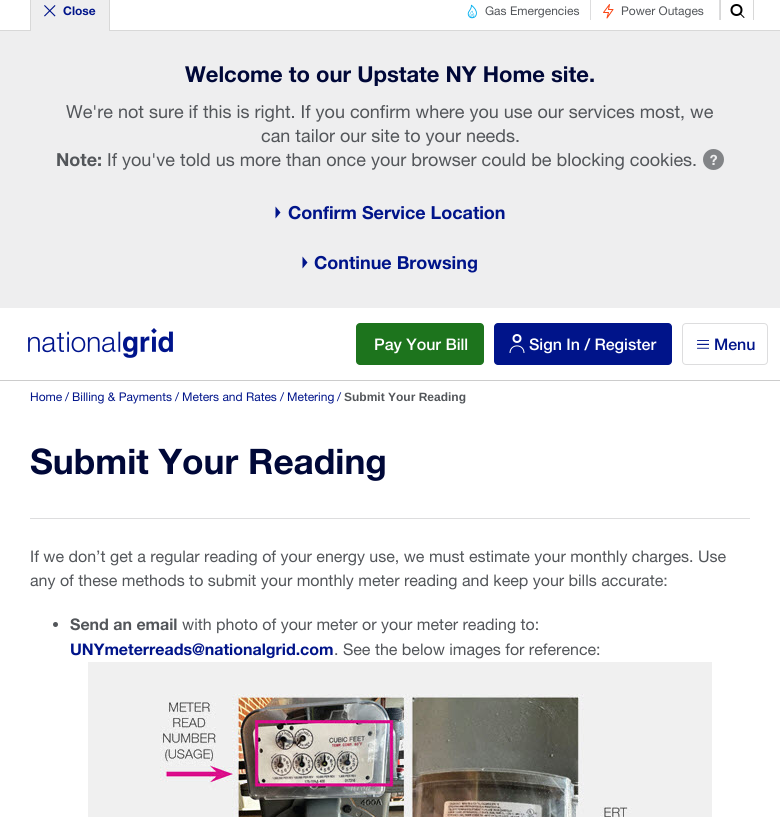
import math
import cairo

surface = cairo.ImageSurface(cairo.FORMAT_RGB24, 780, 826)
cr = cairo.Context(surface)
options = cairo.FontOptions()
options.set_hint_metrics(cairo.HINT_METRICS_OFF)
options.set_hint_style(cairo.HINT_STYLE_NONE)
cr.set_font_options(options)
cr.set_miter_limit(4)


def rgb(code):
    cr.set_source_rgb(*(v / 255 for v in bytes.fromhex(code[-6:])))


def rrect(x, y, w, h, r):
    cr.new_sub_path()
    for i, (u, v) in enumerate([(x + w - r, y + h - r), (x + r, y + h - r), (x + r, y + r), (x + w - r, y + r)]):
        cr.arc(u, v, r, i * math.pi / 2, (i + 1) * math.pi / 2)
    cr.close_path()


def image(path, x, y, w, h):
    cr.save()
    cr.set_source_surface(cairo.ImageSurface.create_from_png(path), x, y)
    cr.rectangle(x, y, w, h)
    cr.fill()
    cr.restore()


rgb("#ffffff")
cr.paint()
for x, y, w, h, color in [
    (0, 380, 780, 1, "#cccccc"),
    (0, 31, 780, 277, "#eeeeef"),
    (0, 30, 780, 1, "#d8d8d8"),
    (31, 0, 78, 31, "#eeeeef"),
    (109, 0, 1, 31, "#d8d8d8"),
    (30, 0, 1, 31, "#d8d8d8"),
]:
    rgb(color)
    cr.rectangle(x, y, w, h)
    cr.fill()
image("img/1.png", 44, 5, 12, 12)
image("img/2.png", 703, 149, 21, 21)
rgb("#00148a")
cr.new_path()
cr.move_to(275.5, 206.5)
cr.line_to(280.5, 212.5)
cr.line_to(275.5, 218.5)
cr.close_path()
cr.fill()
cr.new_path()
cr.move_to(302.5, 256.5)
cr.line_to(307.5, 262.5)
cr.line_to(302.5, 268.5)
cr.close_path()
cr.fill()
rgb("#ddddde")
cr.rectangle(590, 0, 1, 20)
cr.fill()
image("img/3.png", 467, 4, 10, 15)
cr.rectangle(719, 0, 1, 20)
cr.fill()
cr.new_path()
cr.move_to(613, 9.5)
cr.line_to(607, 18)
cr.line_to(608.5, 12.5)
cr.line_to(603.5, 12.5)
cr.line_to(609.5, 4.5)
cr.line_to(608.5, 9.5)
cr.close_path()
rgb("#fa4616")
cr.set_line_width(1)
cr.set_line_cap(cairo.LINE_CAP_ROUND)
cr.set_line_join(cairo.LINE_JOIN_ROUND)
cr.stroke()
rgb("#d8d8d8")
cr.rectangle(753, 0, 1, 20)
cr.fill()
cr.rectangle(720, 0, 1, 20)
cr.fill()
cr.arc(736.5, 10, 5, 0, 2 * math.pi)
rgb("#000000")
cr.set_line_width(2)
cr.set_line_cap(cairo.LINE_CAP_BUTT)
cr.set_line_join(cairo.LINE_JOIN_MITER)
cr.stroke()
cr.new_path()
cr.move_to(740, 13.5)
cr.line_to(744, 17.5)
cr.set_line_width(1)
cr.set_line_cap(cairo.LINE_CAP_ROUND)
cr.set_line_join(cairo.LINE_JOIN_ROUND)
cr.stroke()
image("img/4.png", 28, 328, 145, 30)
rgb("#1d741d")
rrect(356, 323, 128, 42, 4)
cr.fill()
rgb("#00148a")
rrect(494, 323, 178, 42, 4)
cr.fill()
cr.arc(517, 338.5, 3.5, 0, 2 * math.pi)
rgb("#ffffff")
cr.set_line_width(2)
cr.set_line_cap(cairo.LINE_CAP_BUTT)
cr.set_line_join(cairo.LINE_JOIN_MITER)
cr.stroke()
cr.new_path()
cr.move_to(510, 353)
cr.curve_to(510, 343.5, 524, 343.5, 524, 353)
cr.set_line_width(1)
cr.set_line_join(cairo.LINE_JOIN_ROUND)
cr.stroke()
rrect(682.5, 323.5, 85, 41, 3.5)
rgb("#ddddde")
cr.set_line_join(cairo.LINE_JOIN_MITER)
cr.stroke()
image("img/5.png", 697, 340, 12, 9)
cr.rectangle(30, 518, 720, 1)
cr.fill()
rgb("#53565a")
cr.arc(55.5, 624.5, 2.5, 0, 2 * math.pi)
cr.fill()
image("img/6.png", 88, 662, 624, 155)
cr.select_font_face("Helvetica Neue", cairo.FONT_SLANT_NORMAL, cairo.FONT_WEIGHT_BOLD)
cr.set_font_size(12)
rgb("#00148a")
cr.move_to(63, 15)
cr.show_text("Close")
cr.set_font_size(22)
rgb("#000838")
cr.move_to(185, 82)
cr.show_text("Welcome to our Upstate NY Home site.")
cr.select_font_face("Helvetica Neue")
cr.set_font_size(18)
rgb("#53565a")
cr.move_to(66, 118)
cr.show_text("We're not sure if this is right. If you confirm where you use our services most, we")
cr.move_to(261, 142)
cr.show_text("can tailor our site to your needs.")
cr.select_font_face("Helvetica Neue", cairo.FONT_SLANT_NORMAL, cairo.FONT_WEIGHT_BOLD)
cr.move_to(56, 166)
cr.show_text("Note:")
cr.select_font_face("Helvetica Neue")
cr.move_to(107, 166)
cr.show_text("If you've told us more than once your browser could be blocking cookies.")
cr.select_font_face("Helvetica Neue", cairo.FONT_SLANT_NORMAL, cairo.FONT_WEIGHT_BOLD)
rgb("#00148a")
cr.move_to(288, 219)
cr.show_text("Confirm Service Location")
cr.move_to(314, 269)
cr.show_text("Continue Browsing")
cr.select_font_face("Helvetica Neue")
cr.set_font_size(12)
rgb("#53565a")
cr.move_to(485, 15)
cr.show_text("Gas Emergencies")
cr.move_to(621, 15)
cr.show_text("Power Outages")
cr.select_font_face("Helvetica Neue Medium")
cr.set_font_size(16)
rgb("#ffffff")
cr.move_to(374, 350)
cr.show_text("Pay Your Bill")
cr.move_to(529, 350)
cr.show_text("Sign In / Register")
rgb("#00148a")
cr.move_to(714, 350)
cr.show_text("Menu")
cr.select_font_face("Helvetica Neue")
cr.set_font_size(12)
for x, y, s in [
    (30, 401, "Home"),
    (65, 401, "/"),
    (72, 401, "Billing & Payments"),
    (175, 401, "/"),
    (182, 401, "Meters and Rates"),
    (280, 401, "/"),
    (287, 401, "Metering"),
    (337, 401, "/"),
]:
    cr.move_to(x, y)
    cr.show_text(s)
cr.select_font_face("Liberation Sans", cairo.FONT_SLANT_NORMAL, cairo.FONT_WEIGHT_BOLD)
rgb("#53565a")
cr.move_to(344, 401)
cr.show_text("Submit Your Reading")
cr.select_font_face("Helvetica Neue", cairo.FONT_SLANT_NORMAL, cairo.FONT_WEIGHT_BOLD)
cr.set_font_size(35.25)
rgb("#000838")
cr.move_to(30, 474)
cr.show_text("Submit Your Reading")
cr.select_font_face("Helvetica Neue")
cr.set_font_size(16)
rgb("#53565a")
cr.move_to(30, 562)
cr.show_text("If we don’t get a regular reading of your energy use, we must estimate your monthly charges. Use")
cr.move_to(30, 586)
cr.show_text("any of these methods to submit your monthly meter reading and keep your bills accurate:")
cr.select_font_face("Helvetica Neue", cairo.FONT_SLANT_NORMAL, cairo.FONT_WEIGHT_BOLD)
cr.move_to(70, 630)
cr.show_text("Send an email")
cr.select_font_face("Helvetica Neue")
cr.move_to(182, 630)
cr.show_text("with photo of your meter or your meter reading to:")
cr.select_font_face("Helvetica Neue", cairo.FONT_SLANT_NORMAL, cairo.FONT_WEIGHT_BOLD)
rgb("#00148a")
cr.move_to(70, 655)
cr.show_text("UNYmeterreads@nationalgrid.com")
cr.select_font_face("Helvetica Neue")
rgb("#53565a")
cr.move_to(334, 655)
cr.show_text(". See the below images for reference:")
surface.write_to_png("page.png")
